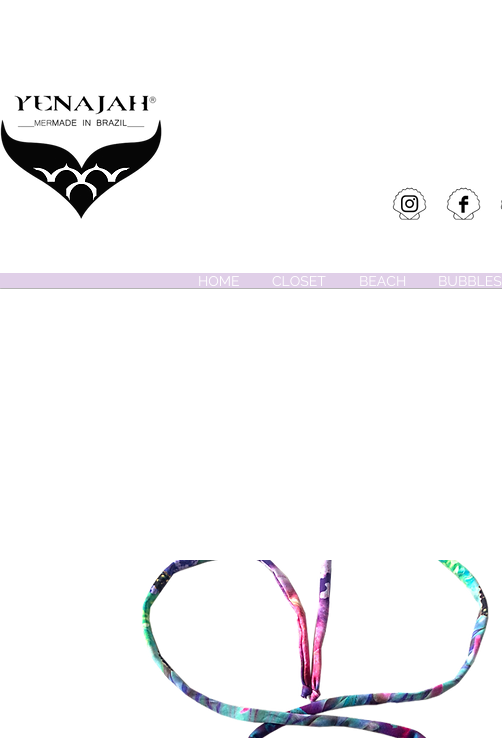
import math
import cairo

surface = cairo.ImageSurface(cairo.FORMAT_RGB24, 502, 738)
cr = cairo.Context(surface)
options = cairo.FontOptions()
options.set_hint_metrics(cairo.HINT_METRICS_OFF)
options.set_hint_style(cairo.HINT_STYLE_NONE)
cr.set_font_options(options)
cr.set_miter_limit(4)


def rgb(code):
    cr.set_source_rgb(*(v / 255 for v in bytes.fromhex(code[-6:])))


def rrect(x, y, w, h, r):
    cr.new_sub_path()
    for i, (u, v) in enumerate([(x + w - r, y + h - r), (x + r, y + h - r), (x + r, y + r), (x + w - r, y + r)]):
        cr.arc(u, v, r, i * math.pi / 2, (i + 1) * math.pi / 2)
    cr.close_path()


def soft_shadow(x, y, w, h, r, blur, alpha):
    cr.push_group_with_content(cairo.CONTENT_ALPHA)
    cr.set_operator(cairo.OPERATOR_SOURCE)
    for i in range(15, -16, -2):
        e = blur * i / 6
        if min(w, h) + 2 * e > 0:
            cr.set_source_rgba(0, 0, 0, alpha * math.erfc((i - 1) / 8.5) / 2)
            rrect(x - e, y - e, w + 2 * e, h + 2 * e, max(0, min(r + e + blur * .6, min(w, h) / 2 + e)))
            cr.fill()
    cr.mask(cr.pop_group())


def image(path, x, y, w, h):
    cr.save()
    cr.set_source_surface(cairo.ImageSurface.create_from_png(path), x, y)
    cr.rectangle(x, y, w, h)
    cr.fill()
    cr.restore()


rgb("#ffffff")
cr.paint()
cr.save()
cr.rectangle(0, 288, 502, 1)
cr.clip()
rgb("#000000")
soft_shadow(0, 0, 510, 288, 0, 2.5, 0.7)
cr.restore()
rgb("#e0cfe8")
cr.rectangle(0, 273, 502, 15)
cr.fill()
image("img/1.png", 0, 95, 162, 124)
image("img/2.png", 392, 187, 35, 33)
image("img/3.png", 446, 187, 35, 33)
image("img/4.png", 500, 200, 2, 10)
rgb("#ffffff")
cr.rectangle(0, 289, 502, 4)
cr.fill()
image("img/5.png", 141, 560, 348, 178)
cr.select_font_face("Raleway")
cr.set_font_size(14)
for x, y, s in [
    (198, 286, "HOME"),
    (272, 286, "CLOSET"),
    (359, 286, "BEACH"),
    (438, 286, "BUBBLES"),
]:
    cr.move_to(x, y)
    cr.show_text(s)
surface.write_to_png("page.png")
